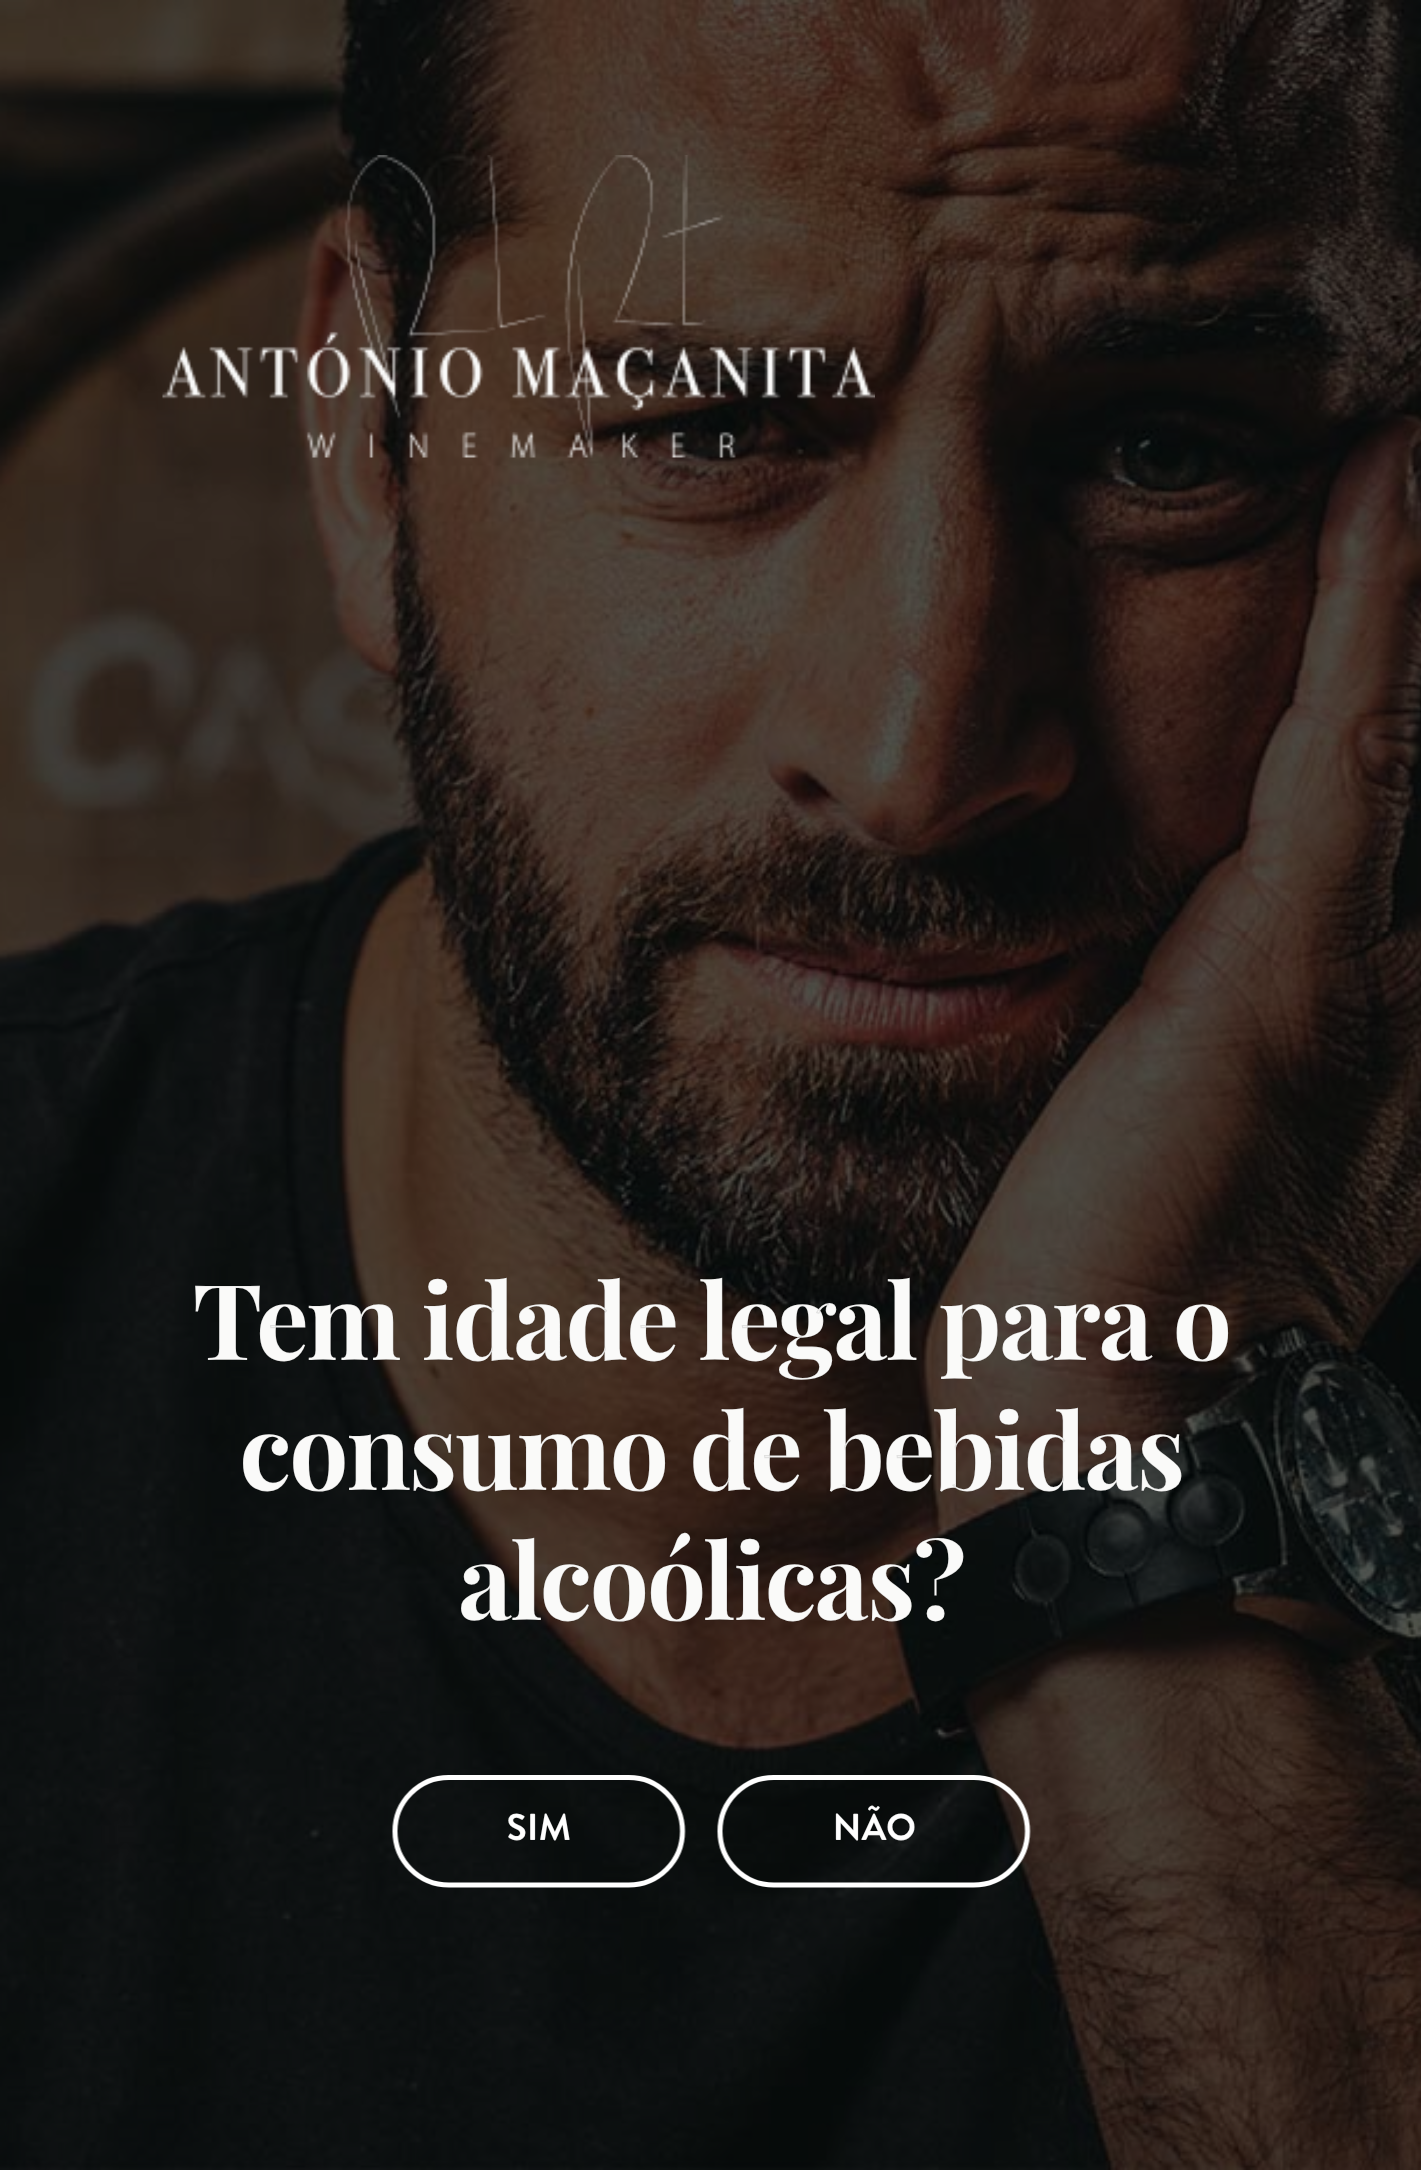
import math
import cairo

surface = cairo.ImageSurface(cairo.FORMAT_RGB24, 1421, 2170)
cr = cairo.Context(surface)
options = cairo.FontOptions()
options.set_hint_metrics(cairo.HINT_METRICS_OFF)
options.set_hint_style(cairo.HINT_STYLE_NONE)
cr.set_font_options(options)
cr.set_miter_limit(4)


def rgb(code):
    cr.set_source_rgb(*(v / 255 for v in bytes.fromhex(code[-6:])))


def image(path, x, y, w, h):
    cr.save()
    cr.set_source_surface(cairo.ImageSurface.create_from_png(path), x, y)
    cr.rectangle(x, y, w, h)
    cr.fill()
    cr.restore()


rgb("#ffffff")
cr.paint()
image("img/1.png", 0, 0, 1421, 2170)
surface.write_to_png("page.png")
